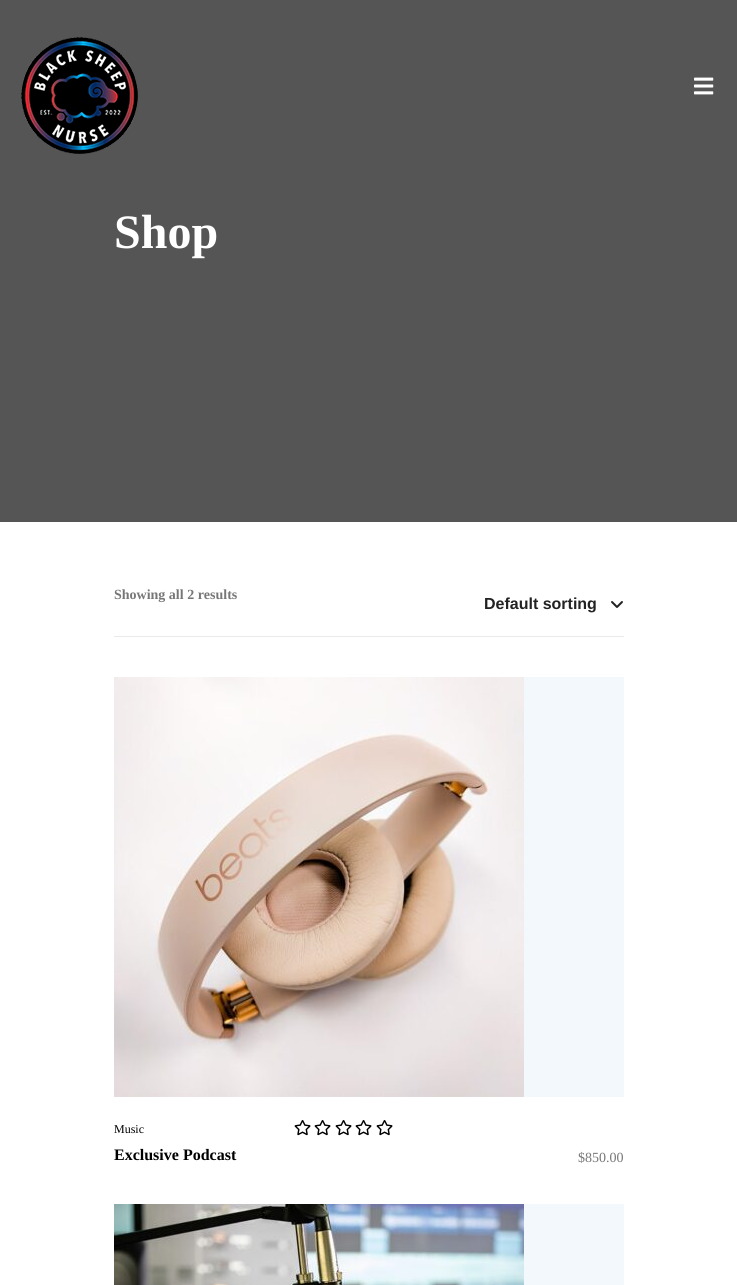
import math
import cairo

surface = cairo.ImageSurface(cairo.FORMAT_RGB24, 737, 1285)
cr = cairo.Context(surface)
options = cairo.FontOptions()
options.set_hint_metrics(cairo.HINT_METRICS_OFF)
options.set_hint_style(cairo.HINT_STYLE_NONE)
cr.set_font_options(options)
cr.set_miter_limit(4)


def rgb(code):
    cr.set_source_rgb(*(v / 255 for v in bytes.fromhex(code[-6:])))


def image(path, x, y, w, h):
    cr.save()
    cr.set_source_surface(cairo.ImageSurface.create_from_png(path), x, y)
    cr.rectangle(x, y, w, h)
    cr.fill()
    cr.restore()


rgb("#ffffff")
cr.paint()
rgb("#555555")
cr.rectangle(0, 0, 737, 522)
cr.fill()
image("img/1.png", 21, 37, 117, 117)
image("img/2.png", 694, 77, 20, 18)
rgb("#eaeaea")
cr.rectangle(114, 636, 510, 1)
cr.fill()
image("img/3.png", 611, 601, 12, 7)
rgb("#f3f8fc")
cr.rectangle(524, 677, 100, 420)
cr.fill()
image("img/4.png", 114, 677, 410, 420)
image("img/5.png", 294, 1120, 17, 16)
image("img/5.png", 314, 1120, 17, 16)
image("img/5.png", 335, 1120, 17, 16)
image("img/5.png", 355, 1120, 17, 16)
image("img/5.png", 376, 1120, 17, 16)
cr.rectangle(524, 1204, 100, 81)
cr.fill()
image("img/6.png", 114, 1204, 410, 81)
cr.select_font_face("Liberation Serif", cairo.FONT_SLANT_NORMAL, cairo.FONT_WEIGHT_BOLD)
cr.set_font_size(48)
rgb("#ffffff")
cr.move_to(114, 248)
cr.show_text("Shop")
cr.set_font_size(14)
rgb("#777777")
cr.move_to(114, 599)
cr.show_text("Showing all 2 results")
cr.select_font_face("Liberation Sans", cairo.FONT_SLANT_NORMAL, cairo.FONT_WEIGHT_BOLD)
cr.set_font_size(16)
rgb("#222222")
cr.move_to(484, 609)
cr.show_text("Default sorting")
cr.select_font_face("Liberation Serif")
cr.set_font_size(12)
rgb("#000000")
cr.move_to(114, 1133)
cr.show_text("Music")
cr.select_font_face("Liberation Serif", cairo.FONT_SLANT_NORMAL, cairo.FONT_WEIGHT_BOLD)
cr.set_font_size(16)
cr.move_to(114, 1160)
cr.show_text("Exclusive Podcast")
cr.select_font_face("Liberation Serif")
cr.set_font_size(14)
rgb("#777777")
cr.move_to(578, 1162)
cr.show_text("$850.00")
surface.write_to_png("page.png")
